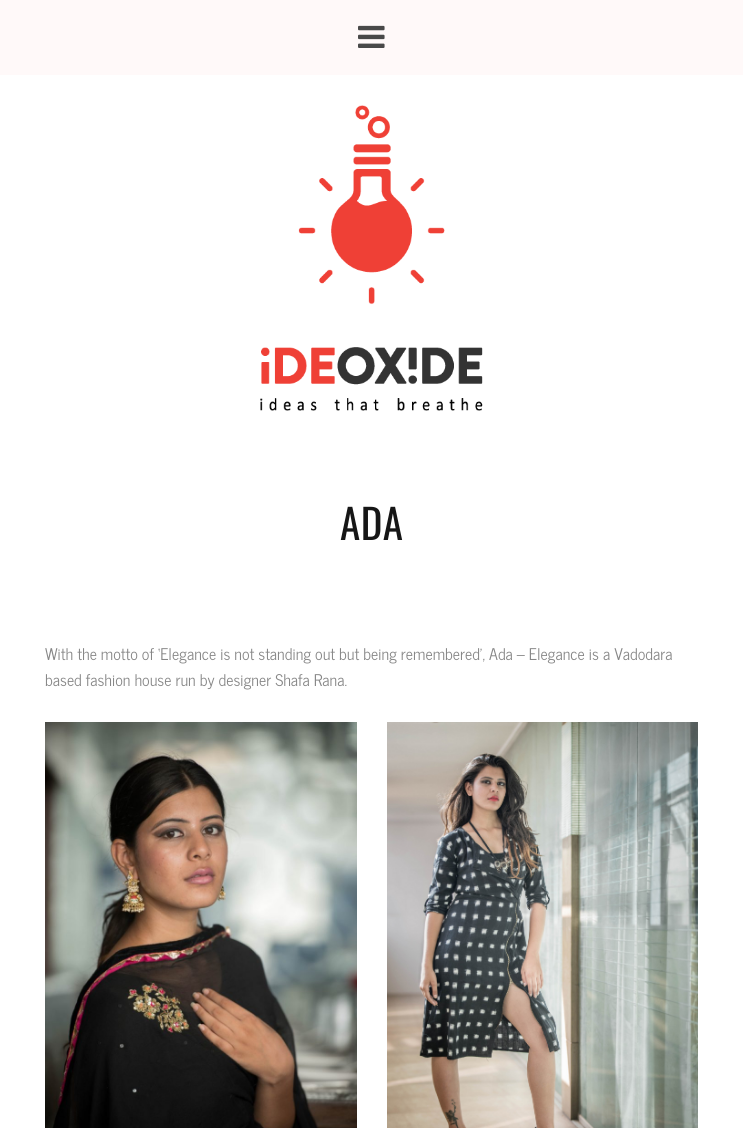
import math
import cairo

surface = cairo.ImageSurface(cairo.FORMAT_RGB24, 743, 1128)
cr = cairo.Context(surface)
options = cairo.FontOptions()
options.set_hint_metrics(cairo.HINT_METRICS_OFF)
options.set_hint_style(cairo.HINT_STYLE_NONE)
cr.set_font_options(options)
cr.set_miter_limit(4)


def rgb(code):
    cr.set_source_rgb(*(v / 255 for v in bytes.fromhex(code[-6:])))


def tracked(x, y, s, letter, word):
    cr.move_to(x, y)
    for ch in s:
        cr.show_text(ch)
        cr.rel_move_to(letter + word * (ch == ' '), 0)


def image(path, x, y, w, h):
    cr.save()
    cr.set_source_surface(cairo.ImageSurface.create_from_png(path), x, y)
    cr.rectangle(x, y, w, h)
    cr.fill()
    cr.restore()


rgb("#ffffff")
cr.paint()
rgb("#fff9f9")
cr.rectangle(0, 0, 743, 75)
cr.fill()
image("img/1.png", 358, 25, 27, 23)
image("img/2.png", 260, 105, 223, 306)
image("img/3.png", 45, 722, 312, 406)
image("img/4.png", 387, 722, 311, 406)
cr.select_font_face("Oswald")
cr.set_font_size(41)
rgb("#161616")
tracked(340, 540, "ADA", 0.5, 0)
cr.select_font_face("News Cycle")
cr.set_font_size(16)
rgb("#868686")
cr.move_to(45, 660)
cr.show_text("With the motto of ‘Elegance is not standing out but being remembered’, Ada – Elegance is a Vadodara")
cr.move_to(45, 686)
cr.show_text("based fashion house run by designer Shafa Rana.")
surface.write_to_png("page.png")
